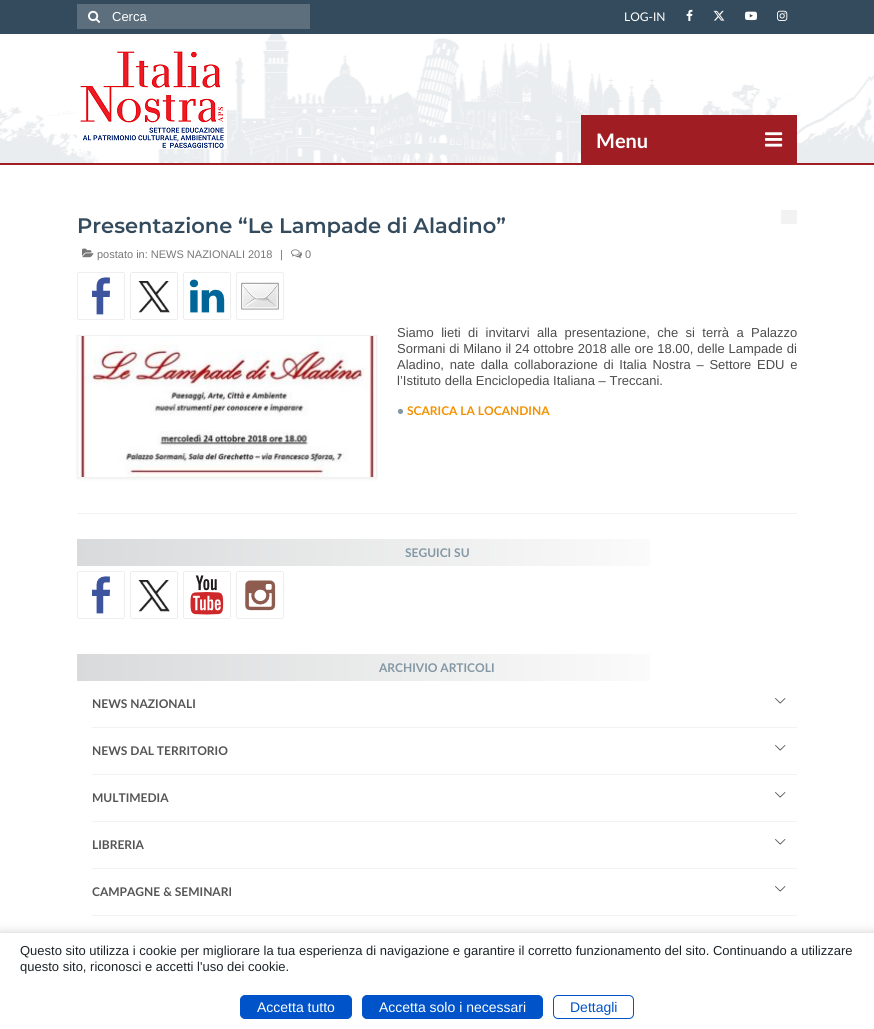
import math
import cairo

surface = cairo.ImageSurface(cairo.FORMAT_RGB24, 874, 1029)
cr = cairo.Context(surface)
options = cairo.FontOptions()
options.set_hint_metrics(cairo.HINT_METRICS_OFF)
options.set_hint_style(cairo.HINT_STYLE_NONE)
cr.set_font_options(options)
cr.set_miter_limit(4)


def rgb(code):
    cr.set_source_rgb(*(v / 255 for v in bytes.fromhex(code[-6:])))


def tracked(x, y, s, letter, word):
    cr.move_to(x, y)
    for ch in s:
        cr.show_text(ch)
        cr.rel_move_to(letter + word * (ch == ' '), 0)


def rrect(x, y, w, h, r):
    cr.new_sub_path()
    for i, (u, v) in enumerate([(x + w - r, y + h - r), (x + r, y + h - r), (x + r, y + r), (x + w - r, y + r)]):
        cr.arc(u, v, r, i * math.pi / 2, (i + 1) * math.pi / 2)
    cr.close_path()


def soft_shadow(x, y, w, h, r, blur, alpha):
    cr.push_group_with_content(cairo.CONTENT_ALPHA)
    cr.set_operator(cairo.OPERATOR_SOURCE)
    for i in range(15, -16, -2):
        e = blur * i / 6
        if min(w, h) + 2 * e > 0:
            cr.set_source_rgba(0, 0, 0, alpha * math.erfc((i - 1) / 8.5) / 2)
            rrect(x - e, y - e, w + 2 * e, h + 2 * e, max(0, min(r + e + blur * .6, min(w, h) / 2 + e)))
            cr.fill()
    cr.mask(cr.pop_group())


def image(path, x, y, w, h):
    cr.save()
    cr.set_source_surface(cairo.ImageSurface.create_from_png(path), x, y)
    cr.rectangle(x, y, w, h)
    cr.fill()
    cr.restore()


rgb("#ffffff")
cr.paint()
image("img/1.png", 0, 34, 874, 131)
rgb("#344b5d")
cr.rectangle(0, 0, 874, 34)
cr.fill()
rgb("#5d6f7d")
cr.rectangle(77, 4, 233, 25)
cr.fill()
image("img/2.png", 88, 10, 12, 13)
image("img/3.png", 686, 9, 7, 12)
image("img/4.png", 713, 10, 12, 11)
image("img/5.png", 745, 11, 12, 10)
image("img/6.png", 777, 10, 11, 11)
image("img/7.png", 77, 50, 150, 99)
rgb("#a01e23")
cr.rectangle(581, 115, 216, 48)
cr.fill()
image("img/8.png", 765, 132, 18, 15)
image("img/9.png", 82, 248, 12, 10)
image("img/10.png", 291, 249, 11, 9)
rgb("#f2f2f2")
cr.rectangle(781, 210, 16, 14)
cr.fill()
image("img/11.png", 77, 272, 48, 48)
image("img/12.png", 130, 272, 48, 48)
image("img/13.png", 183, 272, 48, 48)
image("img/14.png", 236, 272, 48, 48)
rgb("#000000")
soft_shadow(77, 336, 300, 143, 0, 1.5, 0.06)
cr.rectangle(77.5, 335.5, 299, 142)
rgb("#f2f2f2")
cr.set_line_width(1)
cr.stroke()
image("img/15.png", 78, 336, 298, 141)
cr.rectangle(77, 513, 720, 1)
cr.fill()
image("img/16.png", 77, 539, 573, 27)
image("img/11.png", 77, 571, 48, 48)
image("img/12.png", 130, 571, 48, 48)
image("img/17.png", 183, 571, 48, 48)
image("img/18.png", 236, 571, 48, 48)
image("img/16.png", 77, 654, 573, 27)
cr.rectangle(92, 727, 705, 1)
cr.fill()
image("img/19.png", 775, 698, 11, 6)
cr.rectangle(92, 774, 705, 1)
cr.fill()
image("img/19.png", 775, 745, 11, 6)
cr.rectangle(92, 821, 705, 1)
cr.fill()
image("img/19.png", 775, 792, 11, 6)
cr.rectangle(92, 868, 705, 1)
cr.fill()
image("img/19.png", 775, 839, 11, 6)
cr.rectangle(92, 915, 705, 1)
cr.fill()
image("img/19.png", 775, 886, 11, 6)
rgb("#000000")
soft_shadow(0, 933, 874, 96, 0, 5, 0.2)
rgb("#ffffff")
cr.rectangle(0, 933, 874, 96)
cr.fill()
rgb("#0053c8")
rrect(240.5, 995.5, 111, 23, 4.5)
cr.fill_preserve()
cr.stroke()
rrect(362.5, 995.5, 180, 23, 4.5)
cr.fill_preserve()
cr.stroke()
rrect(553.5, 995.5, 80, 23, 4.5)
cr.stroke()
cr.select_font_face("Liberation Sans")
cr.set_font_size(13)
rgb("#ffffff")
cr.move_to(112, 21)
cr.show_text("Cerca")
cr.select_font_face("Lato")
cr.set_font_size(12)
cr.move_to(624, 21)
cr.show_text("LOG-IN")
cr.select_font_face("Lato", cairo.FONT_SLANT_NORMAL, cairo.FONT_WEIGHT_BOLD)
cr.set_font_size(20)
cr.move_to(596, 148)
cr.show_text("Menu")
cr.select_font_face("Montserrat SemiBold")
cr.set_font_size(21)
rgb("#344b5d")
cr.move_to(77, 233)
cr.show_text("Presentazione “Le Lampade di Aladino”")
cr.select_font_face("Liberation Sans")
cr.set_font_size(11)
rgb("#777777")
for x, y, s in [
    (97, 258, "postato in: NEWS NAZIONALI 2018"),
    (280, 258, "|"),
    (305, 258, "0"),
]:
    cr.move_to(x, y)
    cr.show_text(s)
cr.set_font_size(13)
rgb("#4c4c4c")
tracked(397, 337, "Siamo lieti di invitarvi alla presentazione, che si terrà a Palazzo", 0, 3.75)
tracked(397, 353, "Sormani di Milano il 24 ottobre 2018 alle ore 18.00, delle Lampade di", 0, 0.25)
tracked(397, 369, "Aladino, nate dalla collaborazione di Italia Nostra – Settore EDU e", 0, 2.1)
cr.move_to(397, 385)
cr.show_text("l’Istituto della Enciclopedia Italiana – Treccani.")
cr.select_font_face("Lato", cairo.FONT_SLANT_NORMAL, cairo.FONT_WEIGHT_BOLD)
cr.set_font_size(12)
rgb("#8397a4")
cr.move_to(397, 415)
cr.show_text("•")
rgb("#f39200")
cr.move_to(407, 415)
cr.show_text("SCARICA LA LOCANDINA")
rgb("#8397a4")
cr.move_to(405, 557)
cr.show_text("SEGUICI SU")
cr.move_to(379, 672)
cr.show_text("ARCHIVIO ARTICOLI")
rgb("#555555")
for x, y, s in [
    (92, 708, "NEWS NAZIONALI"),
    (92, 755, "NEWS DAL TERRITORIO"),
    (92, 802, "MULTIMEDIA"),
    (92, 849, "LIBRERIA"),
    (92, 896, "CAMPAGNE & SEMINARI"),
]:
    cr.move_to(x, y)
    cr.show_text(s)
cr.select_font_face("Liberation Sans")
cr.set_font_size(13)
rgb("#1d2327")
cr.move_to(20, 955)
cr.show_text("Questo sito utilizza i cookie per migliorare la tua esperienza di navigazione e garantire il corretto funzionamento del sito. Continuando a utilizzare")
cr.move_to(20, 971)
cr.show_text("questo sito, riconosci e accetti l'uso dei cookie.")
cr.set_font_size(14)
rgb("#ffffff")
cr.move_to(257, 1012)
cr.show_text("Accetta tutto")
cr.move_to(379, 1012)
cr.show_text("Accetta solo i necessari")
rgb("#0053c8")
cr.move_to(570, 1012)
cr.show_text("Dettagli")
surface.write_to_png("page.png")
